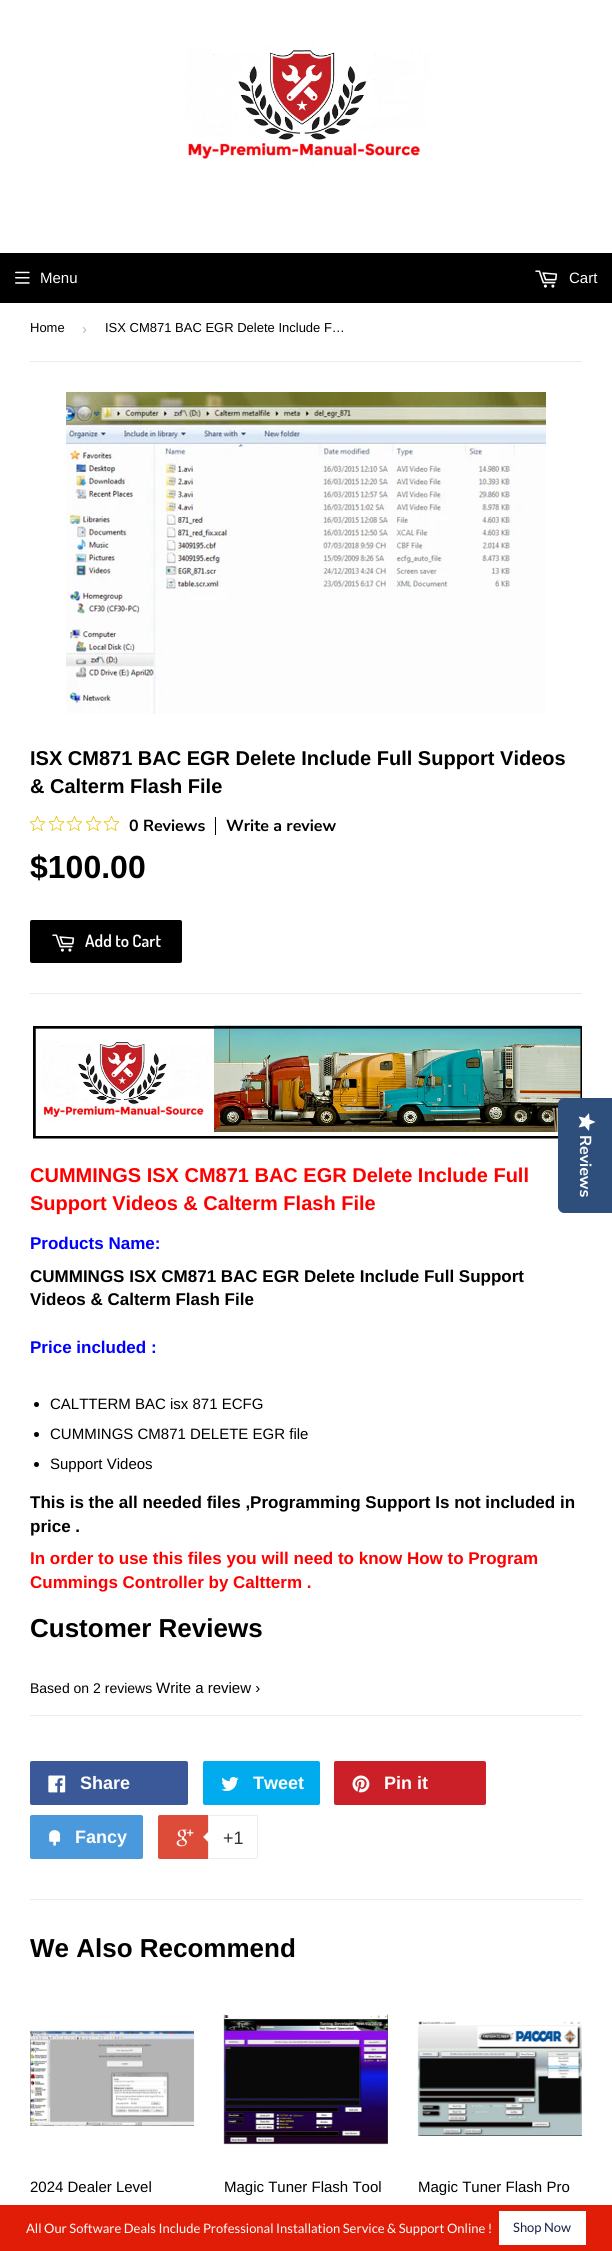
import math
import cairo

surface = cairo.ImageSurface(cairo.FORMAT_RGB24, 612, 2251)
cr = cairo.Context(surface)
options = cairo.FontOptions()
options.set_hint_metrics(cairo.HINT_METRICS_OFF)
options.set_hint_style(cairo.HINT_STYLE_NONE)
cr.set_font_options(options)
cr.set_miter_limit(4)


def rgb(code):
    cr.set_source_rgb(*(v / 255 for v in bytes.fromhex(code[-6:])))


def rrect(x, y, w, h, r):
    cr.new_sub_path()
    for i, (u, v) in enumerate([(x + w - r, y + h - r), (x + r, y + h - r), (x + r, y + r), (x + w - r, y + r)]):
        cr.arc(u, v, r, i * math.pi / 2, (i + 1) * math.pi / 2)
    cr.close_path()


def image(path, x, y, w, h):
    cr.save()
    cr.set_source_surface(cairo.ImageSurface.create_from_png(path), x, y)
    cr.rectangle(x, y, w, h)
    cr.fill()
    cr.restore()


rgb("#ffffff")
cr.paint()
image("img/1.png", 186, 45, 244, 119)
rgb("#000000")
cr.rectangle(0, 253, 612, 50)
cr.fill()
image("img/2.png", 15, 271, 15, 13)
image("img/3.png", 535, 270, 23, 18)
rgb("#ececec")
cr.rectangle(30, 361, 552, 1)
cr.fill()
image("img/4.png", 66, 392, 480, 322)
image("img/5.png", 30, 816, 15, 15)
image("img/5.png", 49, 816, 15, 15)
image("img/5.png", 67, 816, 15, 15)
image("img/5.png", 86, 816, 15, 15)
image("img/5.png", 104, 816, 15, 15)
rgb("#030303")
cr.rectangle(215, 817, 1, 18)
cr.fill()
rgb("#000000")
rrect(30, 920, 152, 43, 2)
cr.fill()
image("img/3.png", 52, 934, 23, 18)
rgb("#ececec")
cr.rectangle(30, 993, 552, 1)
cr.fill()
image("img/6.png", 33, 1025, 549, 114)
rgb("#000000")
cr.arc(36.5, 1404.5, 2.5, 0, 2 * math.pi)
cr.fill()
cr.arc(36.5, 1434.5, 2.5, 0, 2 * math.pi)
cr.fill()
cr.arc(36.5, 1464.5, 2.5, 0, 2 * math.pi)
cr.fill()
rgb("#ececec")
cr.rectangle(30, 1715, 552, 1)
cr.fill()
rgb("#3b5998")
rrect(30, 1761, 158, 44, 2)
cr.fill()
image("img/7.png", 48, 1775, 18, 18)
rgb("#00aced")
rrect(203, 1761, 117, 44, 2)
cr.fill()
image("img/8.png", 221, 1776, 18, 15)
rgb("#cb2027")
rrect(334, 1761, 152, 44, 2)
cr.fill()
image("img/9.png", 352, 1775, 18, 18)
rgb("#4999dc")
rrect(30, 1815, 113, 44, 2)
cr.fill()
image("img/10.png", 49, 1830, 12, 16)
rgb("#dd4b39")
rrect(158, 1815, 98, 44, 2)
cr.fill()
image("img/11.png", 176, 1829, 18, 18)
rgb("#ffffff")
cr.new_path()
cr.move_to(208.5, 1815.5)
cr.line_to(256, 1815.5)
cr.curve_to(257, 1815.5, 257.5, 1816, 257.5, 1817)
cr.line_to(257.5, 1857)
cr.curve_to(257.5, 1858, 257, 1858.5, 256, 1858.5)
cr.line_to(208.5, 1858.5)
cr.close_path()
cr.fill_preserve()
rgb("#ececec")
cr.set_line_width(1)
cr.stroke()
cr.new_path()
cr.move_to(209, 1831)
cr.line_to(209, 1843)
cr.line_to(203, 1837)
cr.close_path()
cr.fill()
rgb("#ffffff")
cr.new_path()
cr.move_to(210, 1831)
cr.line_to(210, 1843)
cr.line_to(204, 1837)
cr.close_path()
cr.fill()
rgb("#ececec")
cr.rectangle(30, 1899, 552, 1)
cr.fill()
image("img/12.png", 30, 2030, 164, 96)
image("img/13.png", 223, 2014, 165, 131)
image("img/14.png", 417, 2021, 165, 115)
rgb("#2e4f7c")
cr.new_path()
cr.move_to(612, 1098)
cr.line_to(612, 1213)
cr.line_to(564, 1213)
cr.curve_to(561, 1213, 558, 1210, 558, 1207)
cr.line_to(558, 1104)
cr.curve_to(558, 1101, 561, 1098, 564, 1098)
cr.close_path()
cr.fill()
image("img/15.png", 578, 1113, 18, 18)
rgb("#e11d07")
cr.rectangle(0, 2205, 612, 46)
cr.fill()
rgb("#ffffff")
cr.rectangle(499, 2211, 87, 34)
cr.fill()
cr.select_font_face("Liberation Sans")
cr.set_font_size(15)
cr.move_to(40, 283)
cr.show_text("Menu")
cr.move_to(569, 283)
cr.show_text("Cart")
cr.set_font_size(13)
rgb("#000000")
cr.move_to(30, 332)
cr.show_text("Home")
cr.set_font_size(15)
rgb("#bbbbbb")
cr.move_to(82, 334)
cr.show_text("›")
cr.set_font_size(13)
rgb("#000000")
cr.move_to(105, 332)
cr.show_text("ISX CM871 BAC EGR Delete Include F…")
cr.select_font_face("Liberation Sans", cairo.FONT_SLANT_NORMAL, cairo.FONT_WEIGHT_BOLD)
cr.set_font_size(20)
cr.move_to(30, 765)
cr.show_text("ISX CM871 BAC EGR Delete Include Full Support Videos")
cr.move_to(30, 793)
cr.show_text("& Calterm Flash File")
cr.select_font_face("Nunito Sans ExtraLight")
cr.set_font_size(16)
cr.move_to(129, 831)
cr.show_text("0 Reviews")
cr.move_to(226, 831)
cr.show_text("Write a review")
cr.select_font_face("Liberation Sans", cairo.FONT_SLANT_NORMAL, cairo.FONT_WEIGHT_BOLD)
cr.set_font_size(32)
cr.move_to(30, 878)
cr.show_text("$100.00")
cr.select_font_face("Dosis SemiBold")
cr.set_font_size(17)
rgb("#ffffff")
cr.move_to(85, 947)
cr.show_text("Add to Cart")
cr.select_font_face("Liberation Sans", cairo.FONT_SLANT_NORMAL, cairo.FONT_WEIGHT_BOLD)
cr.set_font_size(20)
rgb("#ff0000")
cr.move_to(30, 1182)
cr.show_text("CUMMINGS ISX CM871 BAC EGR Delete Include Full")
cr.move_to(30, 1210)
cr.show_text("Support Videos & Calterm Flash File")
cr.set_font_size(17)
rgb("#0000ff")
cr.move_to(30, 1249)
cr.show_text("Products Name:")
rgb("#000000")
cr.move_to(30, 1282)
cr.show_text("CUMMINGS ISX CM871 BAC EGR Delete Include Full Support")
cr.move_to(30, 1305)
cr.show_text("Videos & Calterm Flash File")
rgb("#0000ff")
cr.move_to(30, 1353)
cr.show_text("Price included :")
cr.select_font_face("Liberation Sans")
cr.set_font_size(15)
rgb("#000000")
for x, y, s in [
    (50, 1409, "CALTTERM BAC isx 871 ECFG"),
    (50, 1439, "CUMMINGS CM871 DELETE EGR file"),
    (50, 1469, "Support Videos"),
]:
    cr.move_to(x, y)
    cr.show_text(s)
cr.select_font_face("Liberation Sans", cairo.FONT_SLANT_NORMAL, cairo.FONT_WEIGHT_BOLD)
cr.set_font_size(17)
cr.move_to(30, 1508)
cr.show_text("This is the all needed files ,Programming Support Is not included in")
cr.move_to(30, 1532)
cr.show_text("price .")
rgb("#ff0000")
cr.move_to(30, 1564)
cr.show_text("In order to use this files you will need to know How to Program")
cr.move_to(30, 1588)
cr.show_text("Cummings Controller by Caltterm .")
cr.set_font_size(26)
rgb("#000000")
cr.move_to(30, 1637)
cr.show_text("Customer Reviews")
cr.select_font_face("Liberation Sans")
cr.set_font_size(14)
cr.move_to(30, 1693)
cr.show_text("Based on 2 reviews")
cr.set_font_size(15)
cr.move_to(156, 1693)
cr.show_text("Write a review ›")
cr.select_font_face("Liberation Sans", cairo.FONT_SLANT_NORMAL, cairo.FONT_WEIGHT_BOLD)
cr.set_font_size(18)
rgb("#ffffff")
for x, y, s in [
    (80, 1789, "Share"),
    (253, 1789, "Tweet"),
    (384, 1789, "Pin it"),
    (75, 1843, "Fancy"),
]:
    cr.move_to(x, y)
    cr.show_text(s)
cr.select_font_face("Liberation Sans")
rgb("#333333")
cr.move_to(223, 1844)
cr.show_text("+1")
cr.select_font_face("Liberation Sans", cairo.FONT_SLANT_NORMAL, cairo.FONT_WEIGHT_BOLD)
cr.set_font_size(26)
rgb("#000000")
cr.move_to(30, 1957)
cr.show_text("We Also Recommend")
cr.select_font_face("Liberation Sans")
cr.set_font_size(15)
for x, y, s in [
    (30, 2192, "2024 Dealer Level"),
    (224, 2192, "Magic Tuner Flash Tool"),
    (418, 2192, "Magic Tuner Flash Pro"),
]:
    cr.move_to(x, y)
    cr.show_text(s)
cr.select_font_face("Nunito Sans ExtraLight")
cr.set_font_size(16)
rgb("#ffffff")
cr.save()
cr.translate(580, 1135)
cr.rotate(90 * math.pi / 180)
cr.move_to(0, 0)
cr.show_text("Reviews")
cr.restore()
cr.select_font_face("Lato")
cr.set_font_size(13)
cr.move_to(26, 2233)
cr.show_text("All Our Software Deals Include Professional Installation Service & Support Online !")
rgb("#132044")
cr.move_to(513, 2232)
cr.show_text("Shop Now")
surface.write_to_png("page.png")
